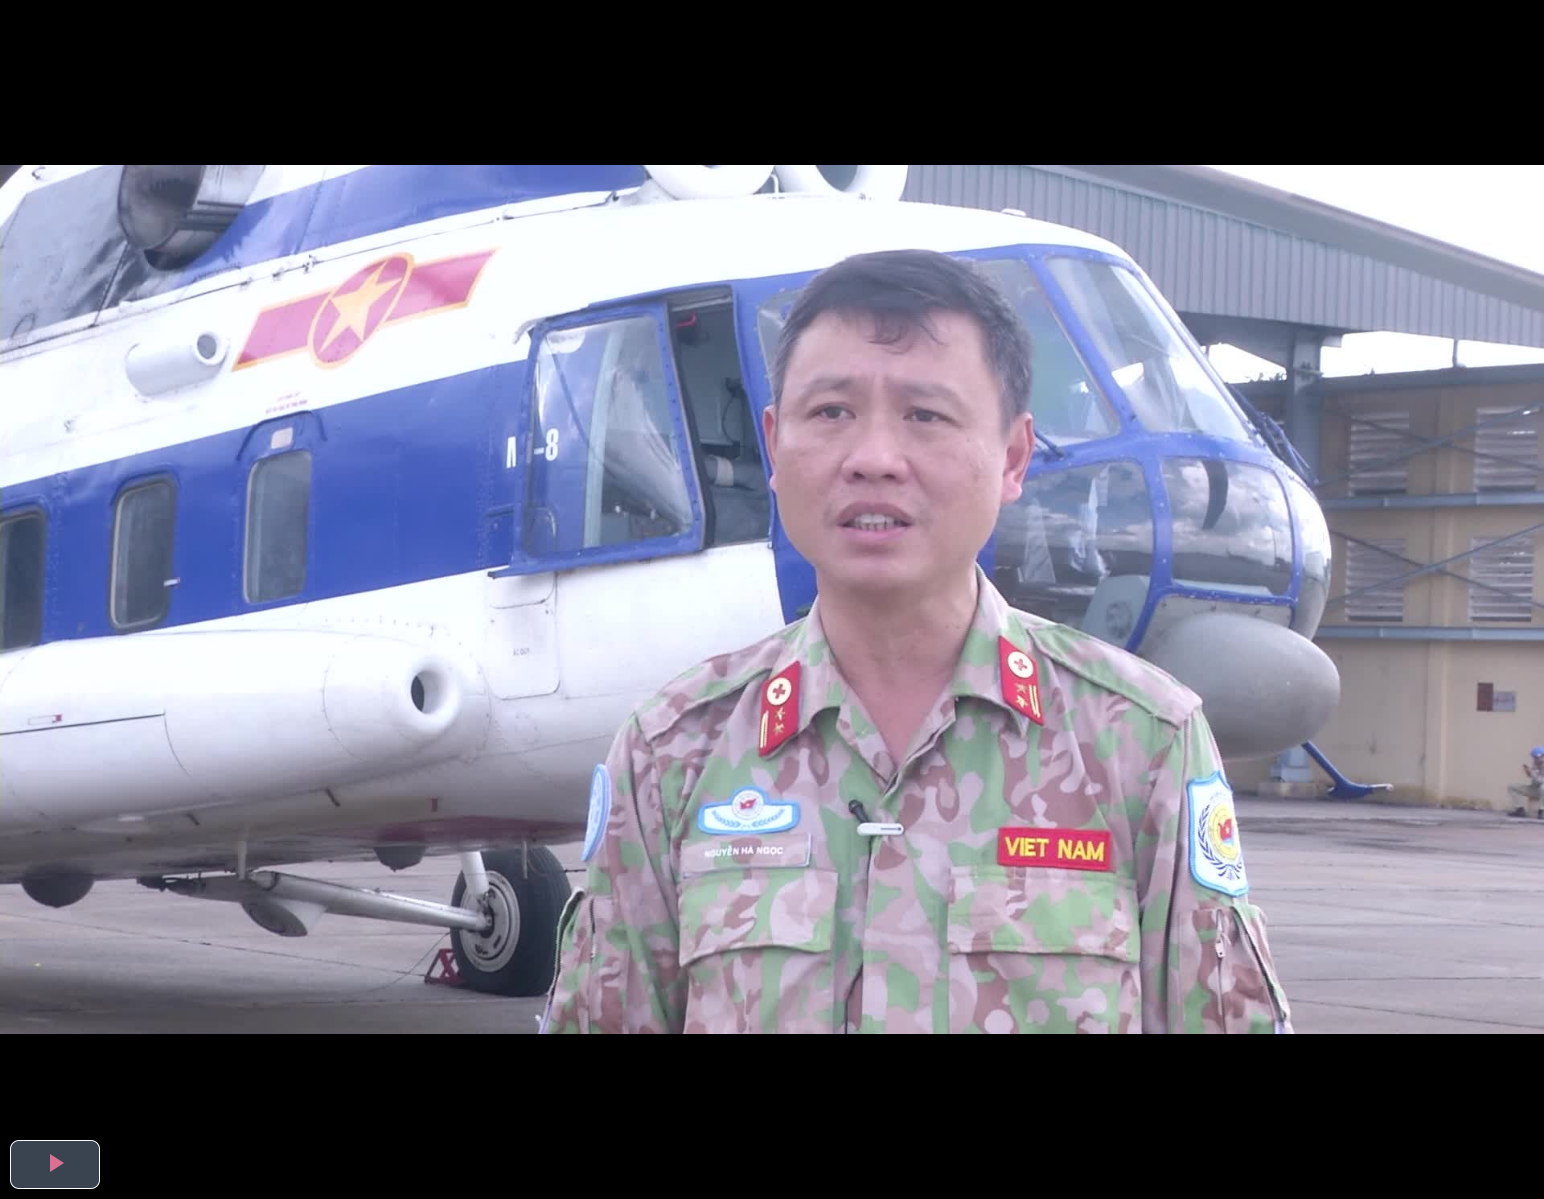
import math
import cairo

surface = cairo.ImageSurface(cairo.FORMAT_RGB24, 1544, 1199)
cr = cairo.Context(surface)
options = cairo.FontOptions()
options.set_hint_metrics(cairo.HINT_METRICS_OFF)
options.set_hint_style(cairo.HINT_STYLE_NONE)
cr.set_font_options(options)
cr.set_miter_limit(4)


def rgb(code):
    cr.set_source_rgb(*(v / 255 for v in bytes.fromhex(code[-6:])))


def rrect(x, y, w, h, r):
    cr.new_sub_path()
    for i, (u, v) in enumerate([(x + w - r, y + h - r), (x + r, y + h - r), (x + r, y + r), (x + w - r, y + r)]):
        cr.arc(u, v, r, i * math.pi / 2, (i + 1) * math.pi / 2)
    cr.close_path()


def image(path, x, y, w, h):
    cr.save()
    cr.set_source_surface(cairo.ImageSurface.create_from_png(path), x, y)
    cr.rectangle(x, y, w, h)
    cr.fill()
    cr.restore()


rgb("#000000")
cr.paint()
image("img/1.png", 0, 165, 1544, 869)
rgb("#3a4350")
rrect(10.5, 1140.5, 89, 48, 8.5)
cr.fill_preserve()
rgb("#ffffff")
cr.set_line_width(1)
cr.stroke()
rgb("#db7093")
cr.new_path()
cr.move_to(50, 1154)
cr.line_to(50, 1172)
cr.line_to(64, 1163)
cr.close_path()
cr.fill()
surface.write_to_png("page.png")
